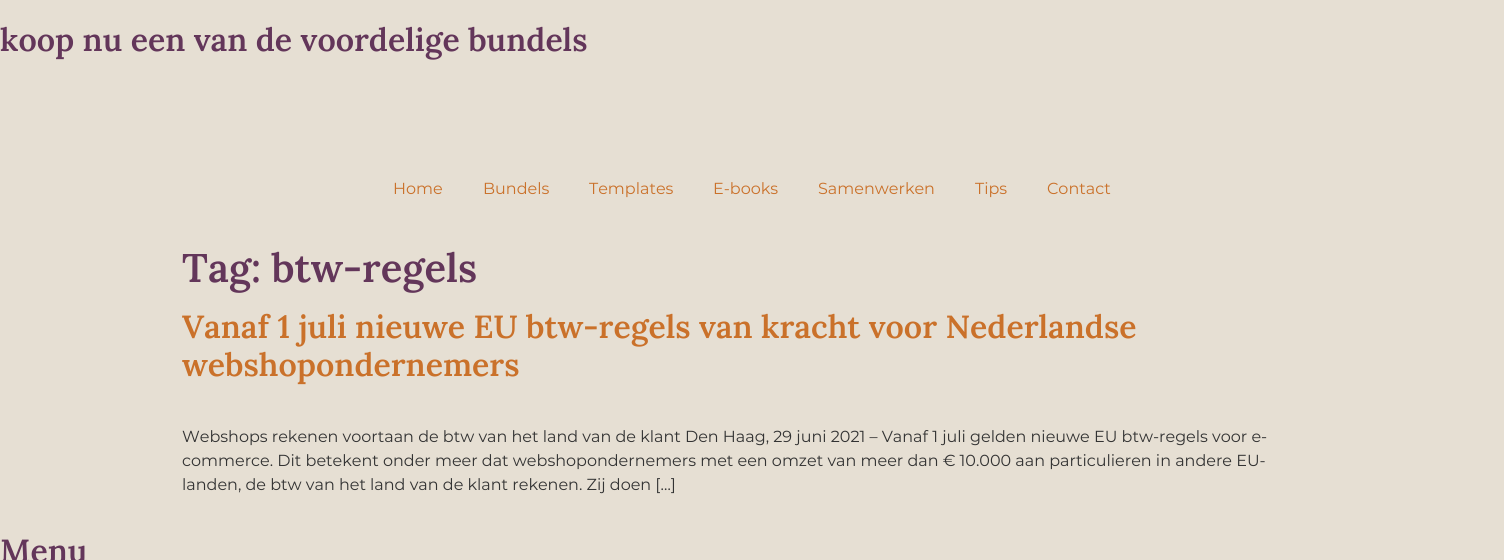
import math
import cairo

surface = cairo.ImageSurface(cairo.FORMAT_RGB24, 1504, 560)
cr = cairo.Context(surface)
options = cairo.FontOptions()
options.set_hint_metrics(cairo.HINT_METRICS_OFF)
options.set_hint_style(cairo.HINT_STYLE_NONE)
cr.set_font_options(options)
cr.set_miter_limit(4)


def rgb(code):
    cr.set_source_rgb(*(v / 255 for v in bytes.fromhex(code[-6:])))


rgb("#e6dfd3")
cr.paint()
cr.select_font_face("Lora SemiBold")
cr.set_font_size(32)
rgb("#63365a")
cr.move_to(0, 51)
cr.show_text("koop nu een van de voordelige bundels")
cr.select_font_face("Montserrat")
cr.set_font_size(16)
rgb("#ca712a")
for x, y, s in [
    (393, 194, "Home"),
    (483, 194, "Bundels"),
    (589, 194, "Templates"),
    (713, 194, "E-books"),
    (818, 194, "Samenwerken"),
    (975, 194, "Tips"),
    (1047, 194, "Contact"),
]:
    cr.move_to(x, y)
    cr.show_text(s)
cr.select_font_face("Lora SemiBold")
cr.set_font_size(40)
rgb("#63365a")
cr.move_to(182, 282)
cr.show_text("Tag: btw-regels")
cr.set_font_size(32)
rgb("#ca712a")
cr.move_to(182, 338)
cr.show_text("Vanaf 1 juli nieuwe EU btw-regels van kracht voor Nederlandse")
cr.move_to(182, 376)
cr.show_text("webshopondernemers")
cr.select_font_face("Montserrat")
cr.set_font_size(16)
rgb("#333333")
for x, y, s in [
    (182, 442, "Webshops rekenen voortaan de btw van het land van de klant Den Haag, 29 juni 2021 – Vanaf 1 juli gelden nieuwe EU btw-regels voor e-"),
    (182, 466, "commerce. Dit betekent onder meer dat webshopondernemers met een omzet van meer dan € 10.000 aan particulieren in andere EU-"),
    (182, 490, "landen, de btw van het land van de klant rekenen. Zij doen […]"),
]:
    cr.move_to(x, y)
    cr.show_text(s)
cr.select_font_face("Lora SemiBold")
cr.set_font_size(32)
rgb("#63365a")
cr.move_to(0, 562)
cr.show_text("Menu")
surface.write_to_png("page.png")
